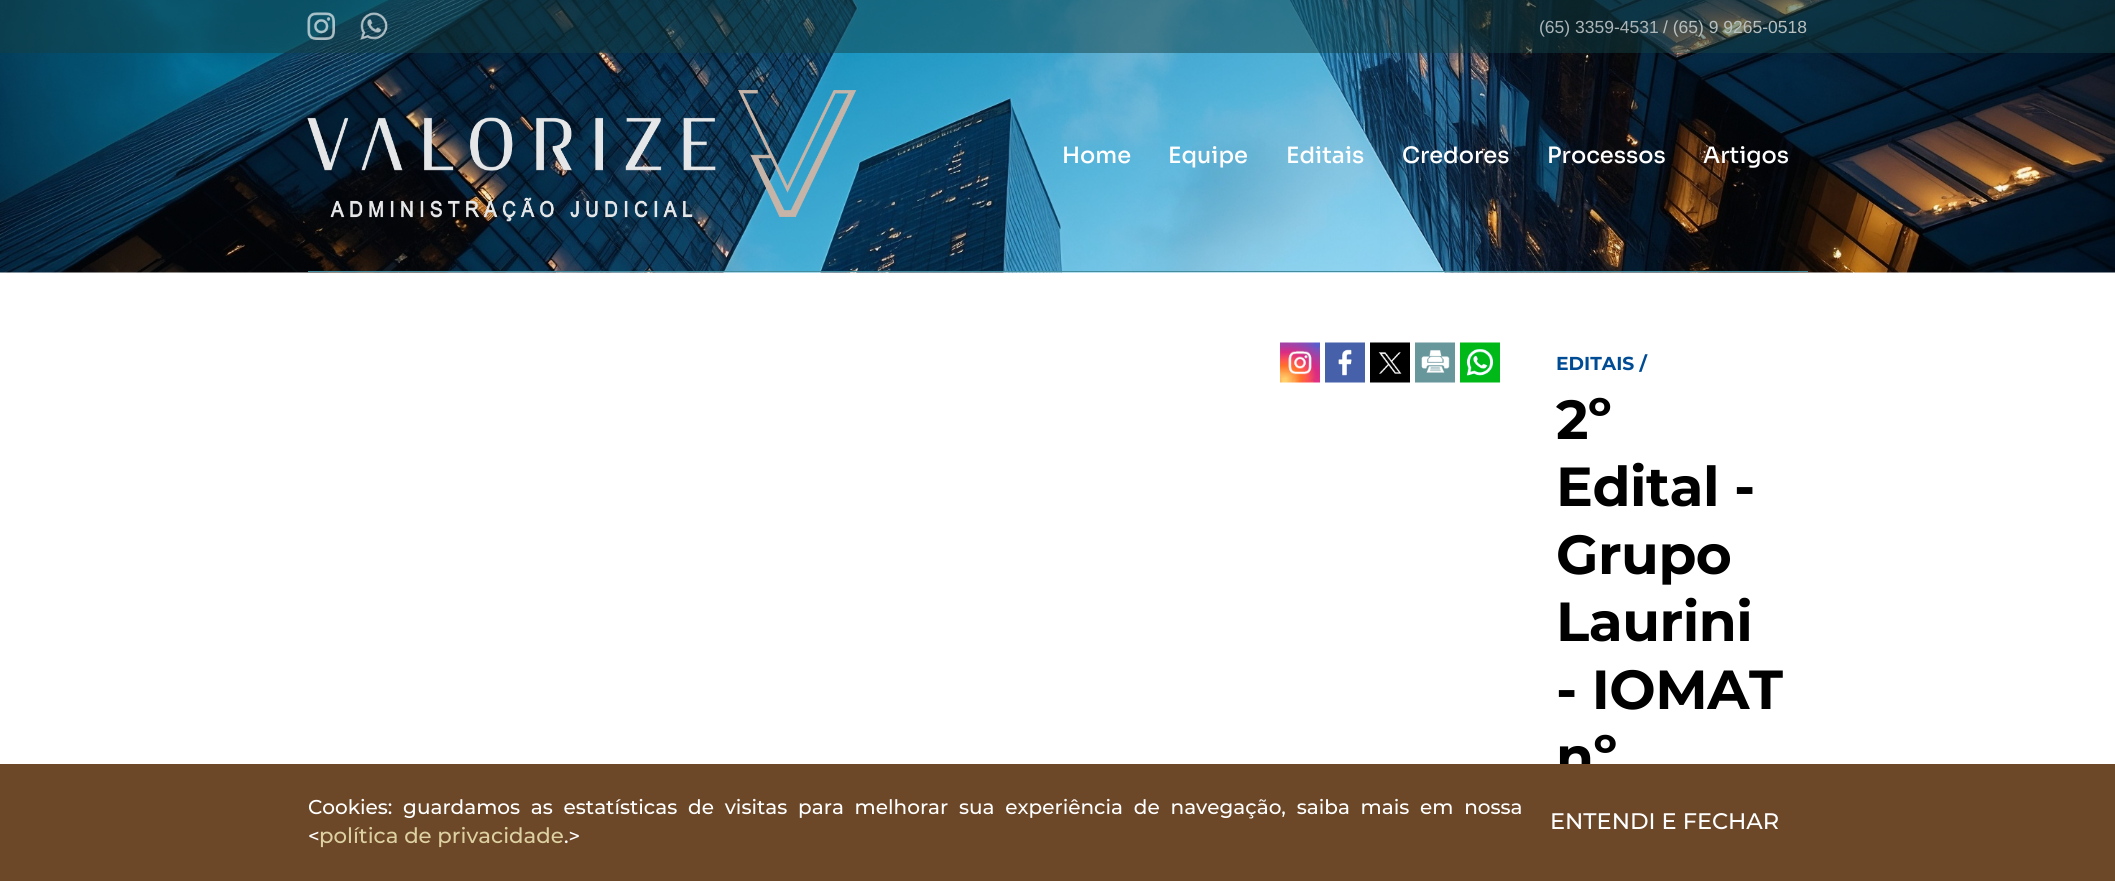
import math
import cairo

surface = cairo.ImageSurface(cairo.FORMAT_RGB24, 2115, 881)
cr = cairo.Context(surface)
options = cairo.FontOptions()
options.set_hint_metrics(cairo.HINT_METRICS_OFF)
options.set_hint_style(cairo.HINT_STYLE_NONE)
cr.set_font_options(options)
cr.set_miter_limit(4)


def rgb(code):
    cr.set_source_rgb(*(v / 255 for v in bytes.fromhex(code[-6:])))


def tracked(x, y, s, letter, word):
    cr.move_to(x, y)
    for ch in s:
        cr.show_text(ch)
        cr.rel_move_to(letter + word * (ch == ' '), 0)


def image(path, x, y, w, h):
    cr.save()
    cr.set_source_surface(cairo.ImageSurface.create_from_png(path), x, y)
    cr.rectangle(x, y, w, h)
    cr.fill()
    cr.restore()


rgb("#ffffff")
cr.paint()
image("img/1.png", 0, 0, 2115, 273)
cr.set_source_rgba(0.078, 0.255, 0.271, 0.49)
cr.rectangle(0, 0, 2115, 53)
cr.fill()
image("img/2.png", 307, 12, 28, 28)
image("img/3.png", 360, 12, 28, 28)
rgb("#448d9e")
cr.rectangle(308, 271, 1500, 1)
cr.fill()
image("img/4.png", 307, 90, 550, 132)
image("img/5.png", 1280, 342, 40, 41)
image("img/6.png", 1325, 342, 40, 41)
image("img/7.png", 1370, 342, 40, 41)
image("img/8.png", 1415, 342, 40, 41)
image("img/9.png", 1460, 342, 40, 41)
cr.select_font_face("Liberation Sans")
cr.set_font_size(17.5)
rgb("#abb5b7")
cr.move_to(1539, 33)
cr.show_text("(65) 3359-4531")
rgb("#b8bfbf")
cr.move_to(1663, 33)
cr.show_text("/ (65) 9 9265-0518")
cr.select_font_face("Sora Medium")
cr.set_font_size(22.5)
rgb("#ffffff")
for x, y, s in [
    (1062, 163, "Home"),
    (1168, 163, "Equipe"),
    (1286, 163, "Editais"),
    (1402, 163, "Credores"),
    (1547, 163, "Processos"),
    (1703, 163, "Artigos"),
]:
    cr.move_to(x, y)
    cr.show_text(s)
cr.select_font_face("Montserrat", cairo.FONT_SLANT_NORMAL, cairo.FONT_WEIGHT_BOLD)
cr.set_font_size(18.75)
rgb("#004c94")
cr.move_to(1556, 370)
cr.show_text("EDITAIS /")
cr.set_font_size(55)
rgb("#000000")
for x, y, s in [
    (1556, 439, "2º"),
    (1556, 506, "Edital -"),
    (1556, 574, "Grupo"),
    (1556, 641, "Laurini"),
    (1556, 709, "- IOMAT"),
    (1556, 776, "nº"),
]:
    tracked(x, y, s, -0.5, 0)
rgb("#6c4728")
cr.rectangle(0, 764, 2115, 117)
cr.fill()
cr.select_font_face("Montserrat Medium")
cr.set_font_size(20)
rgb("#ffffff")
tracked(308, 814, "Cookies: guardamos as estatísticas de visitas para melhorar sua experiência de navegação, saiba mais em nossa", 0, 5.4)
cr.move_to(308, 843)
cr.show_text("<")
cr.set_font_size(21.25)
rgb("#ddd0a1")
cr.move_to(319, 843)
cr.show_text("política de privacidade")
cr.set_font_size(20)
rgb("#ffffff")
cr.move_to(564, 843)
cr.show_text(".>")
cr.set_font_size(22.5)
cr.move_to(1550, 829)
cr.show_text("ENTENDI E FECHAR")
surface.write_to_png("page.png")
